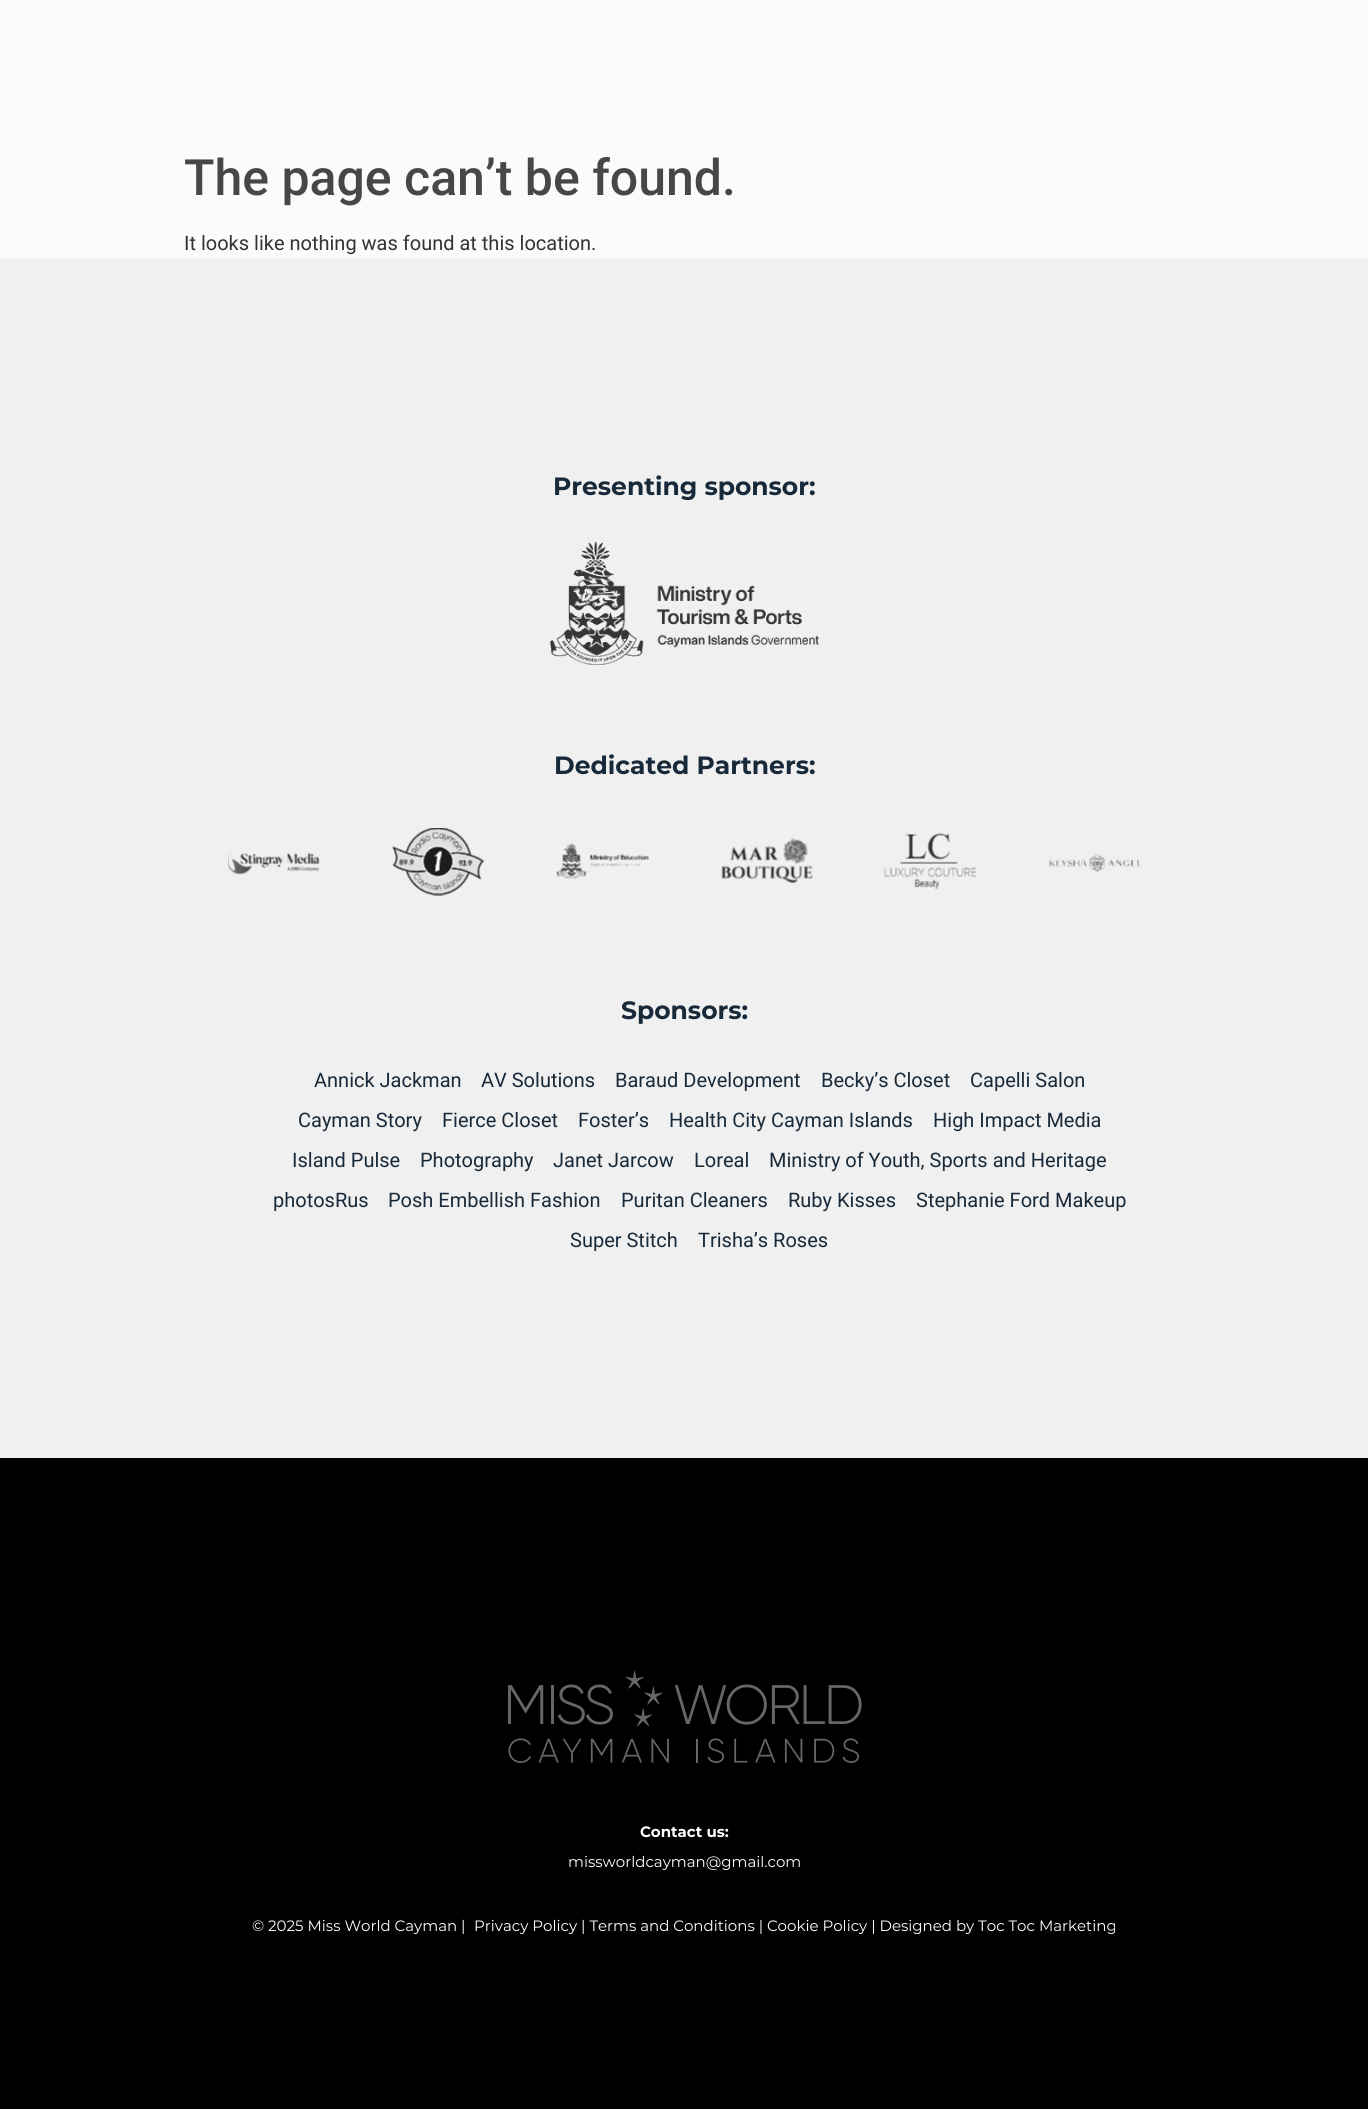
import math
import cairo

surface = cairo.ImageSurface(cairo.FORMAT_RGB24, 1368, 2109)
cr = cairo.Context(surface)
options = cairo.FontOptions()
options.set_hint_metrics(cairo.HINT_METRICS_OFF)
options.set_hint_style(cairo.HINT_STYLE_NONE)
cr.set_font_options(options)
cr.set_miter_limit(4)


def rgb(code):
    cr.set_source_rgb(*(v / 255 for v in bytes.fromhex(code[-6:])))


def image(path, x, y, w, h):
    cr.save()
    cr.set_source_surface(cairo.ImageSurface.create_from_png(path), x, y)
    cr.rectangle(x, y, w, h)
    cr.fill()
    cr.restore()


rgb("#fbfbfc")
cr.paint()
rgb("#000000")
cr.rectangle(0, 1458, 1368, 651)
cr.fill()
rgb("#f0f0f0")
cr.rectangle(0, 259, 1368, 1199)
cr.fill()
image("img/1.png", 550, 541, 269, 124)
image("img/2.png", 228, 851, 92, 24)
image("img/3.png", 392, 828, 93, 68)
image("img/4.png", 556, 843, 93, 36)
image("img/5.png", 721, 838, 92, 45)
image("img/6.png", 884, 833, 93, 57)
image("img/7.png", 1049, 854, 93, 18)
image("img/8.png", 508, 1670, 354, 93)
cr.select_font_face("Roboto Medium")
cr.set_font_size(50)
rgb("#474747")
cr.move_to(184, 195)
cr.show_text("The page can’t be found.")
cr.select_font_face("Roboto")
cr.set_font_size(20)
rgb("#333333")
cr.move_to(184, 250)
cr.show_text("It looks like nothing was found at this location.")
cr.select_font_face("Montserrat", cairo.FONT_SLANT_NORMAL, cairo.FONT_WEIGHT_BOLD)
cr.set_font_size(25)
rgb("#182a3a")
for x, y, s in [
    (553, 495, "Presenting sponsor:"),
    (554, 774, "Dedicated Partners:"),
    (621, 1019, "Sponsors:"),
]:
    cr.move_to(x, y)
    cr.show_text(s)
cr.select_font_face("Roboto")
cr.set_font_size(20)
for x, y, s in [
    (314, 1087, "Annick Jackman"),
    (481, 1087, "AV Solutions"),
    (615, 1087, "Baraud Development"),
    (821, 1087, "Becky’s Closet"),
    (970, 1087, "Capelli Salon"),
    (298, 1127, "Cayman Story"),
    (442, 1127, "Fierce Closet"),
    (578, 1127, "Foster’s"),
    (669, 1127, "Health City Cayman Islands"),
    (933, 1127, "High Impact Media"),
    (292, 1167, "Island Pulse"),
    (420, 1167, "Photography"),
    (553, 1167, "Janet Jarcow"),
    (694, 1167, "Loreal"),
    (769, 1167, "Ministry of Youth, Sports and Heritage"),
    (273, 1207, "photosRus"),
    (388, 1207, "Posh Embellish Fashion"),
    (621, 1207, "Puritan Cleaners"),
    (788, 1207, "Ruby Kisses"),
    (916, 1207, "Stephanie Ford Makeup"),
    (570, 1247, "Super Stitch"),
    (698, 1247, "Trisha’s Roses"),
]:
    cr.move_to(x, y)
    cr.show_text(s)
cr.select_font_face("Montserrat", cairo.FONT_SLANT_NORMAL, cairo.FONT_WEIGHT_BOLD)
cr.set_font_size(15)
rgb("#ffffff")
cr.move_to(640, 1837)
cr.show_text("Contact us:")
cr.select_font_face("Montserrat")
for x, y, s in [
    (568, 1867, "missworldcayman@gmail.com"),
    (252, 1931, "© 2025 Miss World Cayman |"),
    (474, 1931, "Privacy Policy | Terms and Conditions | Cookie Policy | Designed by Toc Toc Marketing"),
]:
    cr.move_to(x, y)
    cr.show_text(s)
surface.write_to_png("page.png")
